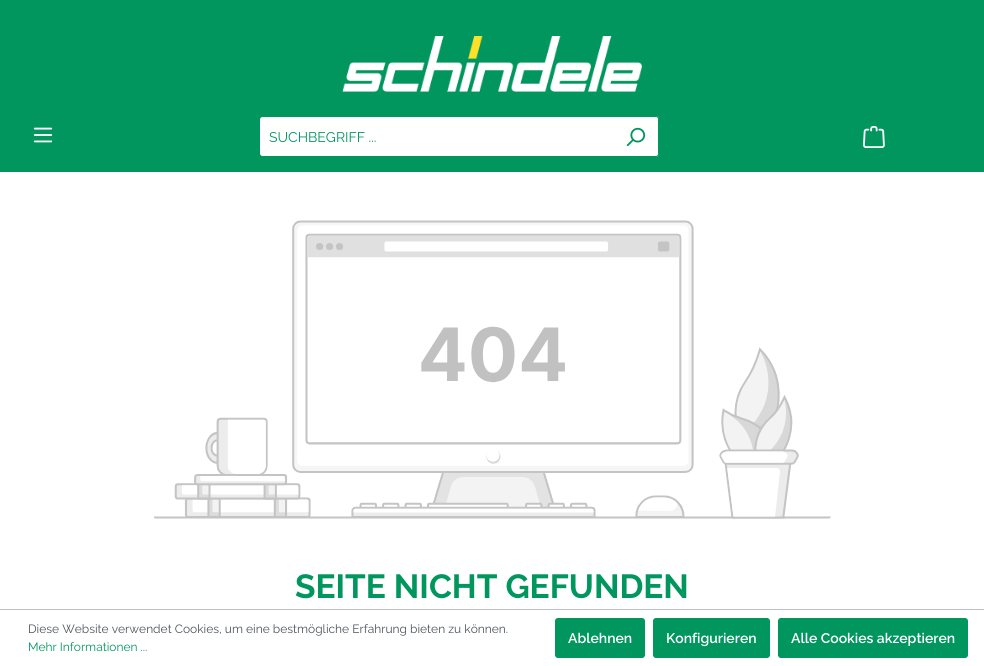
import math
import cairo

surface = cairo.ImageSurface(cairo.FORMAT_RGB24, 984, 666)
cr = cairo.Context(surface)
options = cairo.FontOptions()
options.set_hint_metrics(cairo.HINT_METRICS_OFF)
options.set_hint_style(cairo.HINT_STYLE_NONE)
cr.set_font_options(options)
cr.set_miter_limit(4)


def rgb(code):
    cr.set_source_rgb(*(v / 255 for v in bytes.fromhex(code[-6:])))


def rrect(x, y, w, h, r):
    cr.new_sub_path()
    for i, (u, v) in enumerate([(x + w - r, y + h - r), (x + r, y + h - r), (x + r, y + r), (x + w - r, y + r)]):
        cr.arc(u, v, r, i * math.pi / 2, (i + 1) * math.pi / 2)
    cr.close_path()


def image(path, x, y, w, h):
    cr.save()
    cr.set_source_surface(cairo.ImageSurface.create_from_png(path), x, y)
    cr.rectangle(x, y, w, h)
    cr.fill()
    cr.restore()


rgb("#ffffff")
cr.paint()
rgb("#00965e")
cr.rectangle(0, 0, 984, 172)
cr.fill()
image("img/1.png", 342, 36, 300, 56)
image("img/2.png", 33, 127, 20, 16)
rgb("#ffffff")
cr.new_path()
cr.move_to(262, 117)
cr.line_to(613, 117)
cr.line_to(613, 156)
cr.line_to(262, 156)
cr.curve_to(261, 156, 260, 155, 260, 154)
cr.line_to(260, 119)
cr.curve_to(260, 118, 261, 117, 262, 117)
cr.close_path()
cr.fill()
rgb("#00965e")
cr.set_fill_rule(cairo.FILL_RULE_EVEN_ODD)
cr.new_path()
cr.move_to(262, 116)
cr.line_to(613, 116)
cr.line_to(613, 157)
cr.line_to(262, 157)
cr.curve_to(260, 157, 259, 156, 259, 154)
cr.line_to(259, 119)
cr.curve_to(259, 117, 260, 116, 262, 116)
cr.close_path()
cr.move_to(262, 117)
cr.line_to(613, 117)
cr.line_to(613, 156)
cr.line_to(262, 156)
cr.curve_to(261, 156, 260, 155, 260, 154)
cr.line_to(260, 119)
cr.curve_to(260, 118, 261, 117, 262, 117)
cr.close_path()
cr.fill()
rgb("#ffffff")
cr.new_path()
cr.move_to(612, 116)
cr.line_to(656, 116)
cr.curve_to(657.5, 116, 659, 117.5, 659, 119)
cr.line_to(659, 154)
cr.curve_to(659, 155.5, 657.5, 157, 656, 157)
cr.line_to(612, 157)
cr.close_path()
cr.fill()
rgb("#00965e")
cr.new_path()
cr.move_to(612, 116)
cr.line_to(656, 116)
cr.curve_to(658, 116, 659, 117, 659, 119)
cr.line_to(659, 154)
cr.curve_to(659, 156, 658, 157, 656, 157)
cr.line_to(612, 157)
cr.close_path()
cr.move_to(612, 117)
cr.line_to(656, 117)
cr.curve_to(657, 117, 658, 118, 658, 119)
cr.line_to(658, 154)
cr.curve_to(658, 155, 657, 156, 656, 156)
cr.line_to(612, 156)
cr.close_path()
cr.fill()
image("img/3.png", 626, 127, 20, 20)
image("img/4.png", 863, 126, 22, 22)
image("img/5.png", 154, 220, 677, 299)
rgb("#bcc1c7")
cr.rectangle(0, 609, 984, 1)
cr.fill()
rgb("#00965e")
rrect(555.5, 618.5, 89, 39, 2.5)
cr.fill_preserve()
cr.set_line_width(1)
cr.stroke()
rrect(653.5, 618.5, 116, 39, 2.5)
cr.fill_preserve()
cr.stroke()
rrect(778.5, 618.5, 189, 39, 2.5)
cr.fill_preserve()
cr.stroke()
cr.select_font_face("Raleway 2 Thin")
cr.set_font_size(14)
cr.move_to(269, 142)
cr.show_text("SUCHBEGRIFF ...")
cr.select_font_face("Raleway Thin")
cr.set_font_size(33.4)
cr.move_to(295, 598)
cr.show_text("SEITE NICHT GEFUNDEN")
cr.select_font_face("Raleway 2 Thin")
cr.set_font_size(12)
rgb("#4a545b")
cr.move_to(28, 633)
cr.show_text("Diese Website verwendet Cookies, um eine bestmögliche Erfahrung bieten zu können.")
rgb("#00965e")
cr.move_to(28, 651)
cr.show_text("Mehr Informationen ...")
cr.select_font_face("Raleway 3 Thin")
cr.set_font_size(14)
rgb("#ffffff")
for x, y, s in [
    (568, 643, "Ablehnen"),
    (666, 643, "Konfigurieren"),
    (791, 643, "Alle Cookies akzeptieren"),
]:
    cr.move_to(x, y)
    cr.show_text(s)
surface.write_to_png("page.png")
